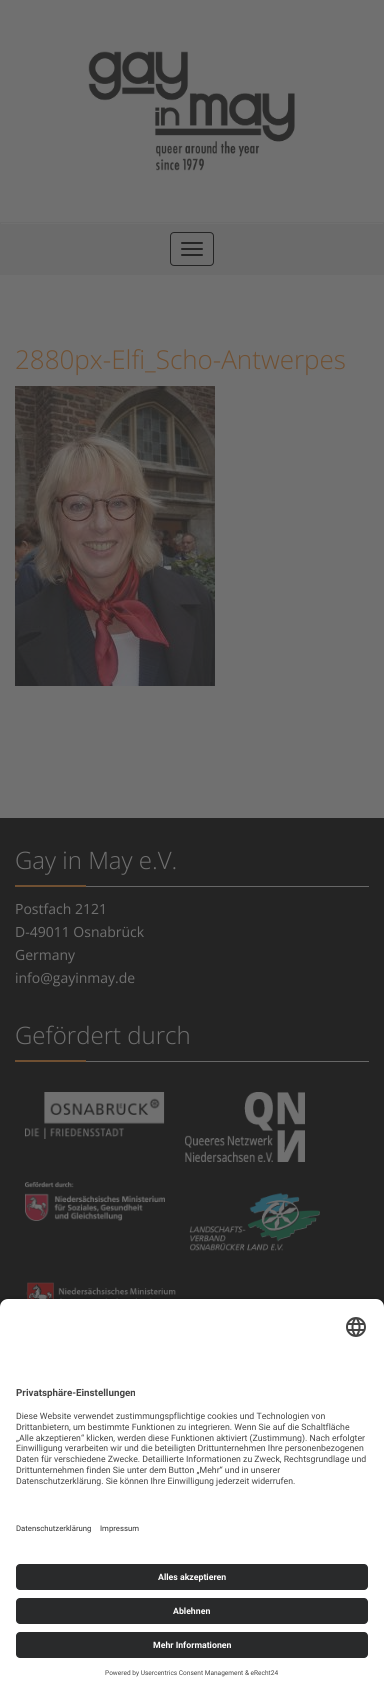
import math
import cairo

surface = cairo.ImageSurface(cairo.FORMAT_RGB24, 384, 1694)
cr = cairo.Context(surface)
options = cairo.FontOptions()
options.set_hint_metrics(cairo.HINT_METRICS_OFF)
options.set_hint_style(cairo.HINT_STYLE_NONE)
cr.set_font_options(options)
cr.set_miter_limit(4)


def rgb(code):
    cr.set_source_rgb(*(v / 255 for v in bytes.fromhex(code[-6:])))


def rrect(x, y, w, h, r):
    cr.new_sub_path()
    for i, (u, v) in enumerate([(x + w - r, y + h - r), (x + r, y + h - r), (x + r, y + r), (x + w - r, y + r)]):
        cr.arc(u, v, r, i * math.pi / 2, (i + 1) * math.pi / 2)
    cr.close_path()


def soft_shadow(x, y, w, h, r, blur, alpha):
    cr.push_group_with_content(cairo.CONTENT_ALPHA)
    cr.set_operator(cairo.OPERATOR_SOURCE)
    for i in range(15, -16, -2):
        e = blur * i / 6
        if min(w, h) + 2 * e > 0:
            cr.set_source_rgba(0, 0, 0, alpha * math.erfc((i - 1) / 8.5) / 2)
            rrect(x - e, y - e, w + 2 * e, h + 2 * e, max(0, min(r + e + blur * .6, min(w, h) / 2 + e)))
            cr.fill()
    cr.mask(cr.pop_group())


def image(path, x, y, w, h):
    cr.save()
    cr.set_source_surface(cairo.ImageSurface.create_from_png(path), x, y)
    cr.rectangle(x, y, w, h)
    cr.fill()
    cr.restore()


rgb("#707070")
cr.paint()
image("img/1.png", 88, 51, 207, 120)
rgb("#6b6b6b")
cr.rectangle(0, 222, 384, 53)
cr.fill()
rgb("#707070")
cr.rectangle(1, 223, 382, 1)
cr.fill()
rrect(170.5, 232.5, 43, 33, 3.5)
rgb("#242424")
cr.set_line_width(1)
cr.stroke()
rrect(181, 242, 22, 2, 1)
cr.fill()
rrect(181, 248, 22, 2, 1)
cr.fill()
rrect(181, 254, 22, 2, 1)
cr.fill()
image("img/2.png", 15, 386, 200, 300)
for x, y, w, h, color in [
    (0, 818, 384, 489, "#242424"),
    (15, 885, 71, 2, "#705032"),
    (86, 886, 283, 1, "#676767"),
    (15, 1060, 71, 2, "#705032"),
    (86, 1061, 283, 1, "#676767"),
]:
    rgb(color)
    cr.rectangle(x, y, w, h)
    cr.fill()
image("img/3.png", 25, 1092, 140, 47)
image("img/4.png", 185, 1092, 120, 70)
image("img/5.png", 25, 1182, 140, 39)
image("img/6.png", 189, 1192, 131, 59)
image("img/7.png", 26, 1282, 150, 17)
rgb("#000000")
soft_shadow(0, 1302, 384, 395, 8, 3.5, 0.8)
rgb("#ffffff")
cr.new_path()
cr.move_to(8, 1299)
cr.line_to(376, 1299)
cr.curve_to(380.5, 1299, 384, 1302.5, 384, 1307)
cr.line_to(384, 1507)
cr.line_to(0, 1507)
cr.line_to(0, 1307)
cr.curve_to(0, 1302.5, 3.5, 1299, 8, 1299)
cr.close_path()
cr.fill()
image("img/8.png", 346, 1317, 20, 20)
cr.rectangle(0, 1507, 384, 187)
cr.fill()
rgb("#292a2b")
rrect(16, 1564, 352, 26, 4)
cr.fill()
rrect(16, 1598, 352, 26, 4)
cr.fill()
rrect(16, 1632, 352, 26, 4)
cr.fill()
cr.select_font_face("Open Sans Light")
cr.set_font_size(26)
rgb("#705032")
cr.move_to(15, 369)
cr.show_text("2880px-Elfi_Scho-Antwerpes")
cr.set_font_size(24)
rgb("#707070")
cr.move_to(15, 869)
cr.show_text("Gay in May e.V.")
cr.select_font_face("Open Sans")
cr.set_font_size(14)
for x, y, s in [
    (15, 914, "Postfach 2121"),
    (15, 937, "D-49011 Osnabrück"),
    (15, 960, "Germany"),
    (15, 983, "info@gayinmay.de"),
]:
    cr.move_to(x, y)
    cr.show_text(s)
cr.select_font_face("Open Sans Light")
cr.set_font_size(24)
cr.move_to(15, 1044)
cr.show_text("Gefördert durch")
cr.select_font_face("Roboto", cairo.FONT_SLANT_NORMAL, cairo.FONT_WEIGHT_BOLD)
cr.set_font_size(9.8)
rgb("#444444")
cr.move_to(16, 1396)
cr.show_text("Privatsphäre-Einstellungen")
cr.select_font_face("Roboto")
cr.set_font_size(8.75)
for x, y, s in [
    (16, 1419, "Diese Website verwendet zustimmungspflichtige cookies und Technologien von"),
    (16, 1430, "Drittanbietern, um bestimmte Funktionen zu integrieren. Wenn Sie auf die Schaltfläche"),
    (16, 1441, "„Alle akzeptieren“ klicken, werden diese Funktionen aktiviert (Zustimmung). Nach erfolgter"),
    (16, 1451, "Einwilligung verarbeiten wir und die beteiligten Drittunternehmen Ihre personenbezogenen"),
    (16, 1462, "Daten für verschiedene Zwecke. Detaillierte Informationen zu Zweck, Rechtsgrundlage und"),
    (16, 1473, "Drittunternehmen finden Sie unter dem Button „Mehr“ und in unserer"),
    (16, 1484, "Datenschutzerklärung. Sie können Ihre Einwilligung jederzeit widerrufen."),
]:
    cr.move_to(x, y)
    cr.show_text(s)
cr.set_font_size(7.75)
rgb("#303030")
cr.move_to(16, 1531)
cr.show_text("Datenschutzerklärung")
cr.move_to(100, 1531)
cr.show_text("Impressum")
cr.select_font_face("Roboto", cairo.FONT_SLANT_NORMAL, cairo.FONT_WEIGHT_BOLD)
cr.set_font_size(8.75)
rgb("#ffffff")
for x, y, s in [
    (158, 1580, "Alles akzeptieren"),
    (173, 1614, "Ablehnen"),
    (153, 1648, "Mehr Informationen"),
]:
    cr.move_to(x, y)
    cr.show_text(s)
cr.select_font_face("Roboto")
cr.set_font_size(6.55)
rgb("#444444")
cr.move_to(105, 1675)
cr.show_text("Powered by Usercentrics Consent Management & eRecht24")
surface.write_to_png("page.png")
